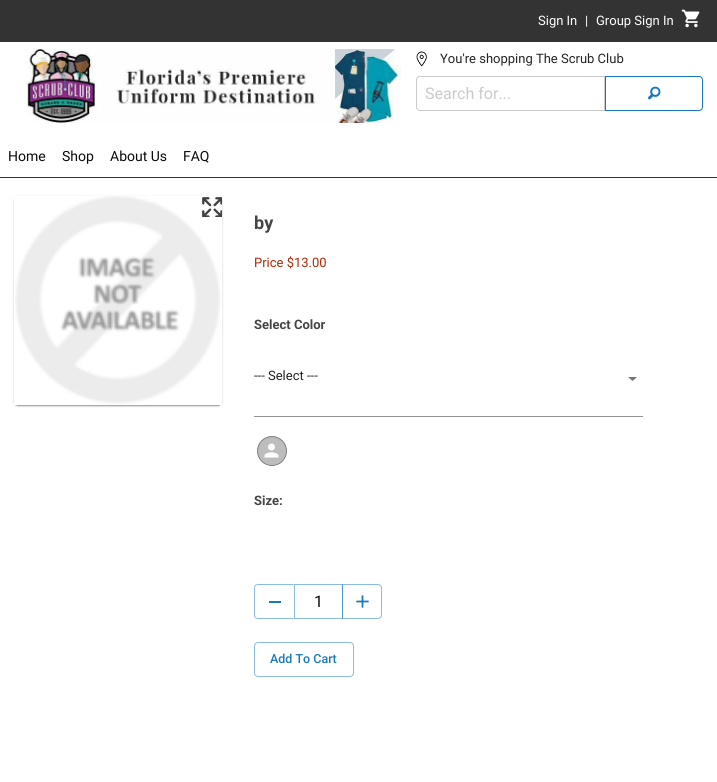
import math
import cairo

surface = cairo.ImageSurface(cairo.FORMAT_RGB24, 717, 782)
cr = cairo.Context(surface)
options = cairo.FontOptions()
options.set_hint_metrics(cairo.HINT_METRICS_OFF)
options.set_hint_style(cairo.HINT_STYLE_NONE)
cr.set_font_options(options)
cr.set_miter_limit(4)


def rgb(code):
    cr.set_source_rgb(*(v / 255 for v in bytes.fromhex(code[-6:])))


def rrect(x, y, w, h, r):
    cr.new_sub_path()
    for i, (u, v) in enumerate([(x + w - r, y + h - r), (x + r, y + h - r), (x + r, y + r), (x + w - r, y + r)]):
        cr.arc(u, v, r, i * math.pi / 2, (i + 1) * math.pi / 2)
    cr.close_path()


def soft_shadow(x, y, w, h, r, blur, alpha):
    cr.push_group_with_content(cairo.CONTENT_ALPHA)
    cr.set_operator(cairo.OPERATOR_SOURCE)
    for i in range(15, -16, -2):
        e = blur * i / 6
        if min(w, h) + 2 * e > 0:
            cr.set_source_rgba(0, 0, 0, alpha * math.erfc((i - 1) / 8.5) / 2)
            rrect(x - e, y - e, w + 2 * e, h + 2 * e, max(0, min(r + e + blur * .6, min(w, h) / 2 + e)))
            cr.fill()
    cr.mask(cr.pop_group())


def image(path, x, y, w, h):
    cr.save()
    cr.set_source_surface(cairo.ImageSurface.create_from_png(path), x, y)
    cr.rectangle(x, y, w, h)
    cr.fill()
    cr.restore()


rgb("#ffffff")
cr.paint()
rgb("#333333")
cr.rectangle(0, 0, 717, 42)
cr.fill()
image("img/1.png", 681, 9, 19, 19)
image("img/2.png", 26, 49, 375, 74)
image("img/3.png", 416, 51, 11, 16)
cr.new_path()
cr.move_to(420, 76.5)
cr.line_to(604.5, 76.5)
cr.line_to(604.5, 110.5)
cr.line_to(420, 110.5)
cr.curve_to(418, 110.5, 416.5, 109, 416.5, 107)
cr.line_to(416.5, 80)
cr.curve_to(416.5, 78, 418, 76.5, 420, 76.5)
cr.close_path()
rgb("#cacaca")
cr.set_line_width(1)
cr.stroke()
cr.new_path()
cr.move_to(605.5, 76.5)
cr.line_to(699, 76.5)
cr.curve_to(701, 76.5, 702.5, 78, 702.5, 80)
cr.line_to(702.5, 107)
cr.curve_to(702.5, 109, 701, 110.5, 699, 110.5)
cr.line_to(605.5, 110.5)
cr.close_path()
rgb("#1779ba")
cr.stroke()
image("img/4.png", 648, 86, 13, 14)
rgb("#333333")
cr.rectangle(0, 177, 717, 1)
cr.fill()
rgb("#000000")
soft_shadow(14, 197, 208, 209, 4, 1.5, 0.12)
soft_shadow(14, 197, 208, 209, 4, 0.5, 0.14)
soft_shadow(15, 199, 206, 207, 3, 0.5, 0.2)
rgb("#ffffff")
cr.rectangle(14, 196, 208, 209)
cr.fill()
image("img/5.png", 15, 196, 206, 208)
image("img/6.png", 202, 197, 20, 20)
rgb("#757575")
cr.new_path()
cr.move_to(628, 377)
cr.line_to(632.5, 381)
cr.line_to(637, 377)
cr.close_path()
cr.fill()
rgb("#949494")
cr.rectangle(254, 416, 389, 1)
cr.fill()
rgb("#bdbdbd")
cr.arc(272, 451, 14.5, 0, 2 * math.pi)
cr.fill_preserve()
rgb("#808080")
cr.stroke()
image("img/7.png", 264, 443, 15, 15)
rgb("#8bbcdd")
cr.new_path()
cr.move_to(258, 584)
cr.curve_to(257, 584, 256, 584.5, 255, 585)
cr.line_to(256, 586)
cr.curve_to(256, 585, 257, 585, 258, 585)
cr.line_to(293, 585)
cr.line_to(294, 584)
cr.close_path()
cr.move_to(294, 619)
cr.line_to(293, 618)
cr.line_to(258, 618)
cr.curve_to(257, 618, 256, 618, 256, 617)
cr.line_to(255, 618)
cr.curve_to(256, 618.5, 257, 619, 258, 619)
cr.close_path()
cr.fill()
cr.set_source_rgba(0.09, 0.475, 0.729, 0.5)
cr.new_path()
cr.move_to(254, 588)
cr.line_to(254, 615)
cr.curve_to(254, 616, 254.5, 617, 255, 618)
cr.line_to(256, 617)
cr.curve_to(255, 617, 255, 616, 255, 615)
cr.line_to(255, 588)
cr.curve_to(255, 587, 255, 586, 256, 586)
cr.line_to(255, 585)
cr.curve_to(254.5, 586, 254, 587, 254, 588)
cr.close_path()
cr.fill()
rgb("#1779ba")
cr.rectangle(269, 601, 12, 2)
cr.fill()
cr.rectangle(294.5, 584.5, 48, 34)
rgb("#8bbcdc")
cr.stroke()
cr.new_path()
cr.move_to(342.5, 584.5)
cr.line_to(378, 584.5)
cr.curve_to(380, 584.5, 381.5, 586, 381.5, 588)
cr.line_to(381.5, 615)
cr.curve_to(381.5, 617, 380, 618.5, 378, 618.5)
cr.line_to(342.5, 618.5)
cr.close_path()
cr.set_source_rgba(0.09, 0.475, 0.729, 0.5)
cr.stroke()
image("img/8.png", 356, 595, 13, 13)
rrect(254.5, 642.5, 99, 34, 3.5)
rgb("#8bbcdd")
cr.stroke()
cr.select_font_face("Roboto")
cr.set_font_size(13)
rgb("#ffffff")
for x, y, s in [
    (538, 25, "Sign In"),
    (585, 25, "|"),
    (596, 25, "Group Sign In"),
]:
    cr.move_to(x, y)
    cr.show_text(s)
rgb("#232323")
cr.move_to(440, 63)
cr.show_text("You're shopping The Scrub Club")
cr.set_font_size(16)
rgb("#cacaca")
cr.move_to(425, 99)
cr.show_text("Search for...")
cr.set_font_size(14)
rgb("#0a0a0a")
for x, y, s in [
    (8, 161, "Home"),
    (62, 161, "Shop"),
    (110, 161, "About Us"),
    (183, 161, "FAQ"),
]:
    cr.move_to(x, y)
    cr.show_text(s)
cr.select_font_face("Roboto", cairo.FONT_SLANT_NORMAL, cairo.FONT_WEIGHT_BOLD)
cr.set_font_size(18)
rgb("#444444")
cr.move_to(254, 229)
cr.show_text("by")
cr.select_font_face("Roboto")
cr.set_font_size(13)
rgb("#b12705")
cr.move_to(254, 267)
cr.show_text("Price $13.00")
cr.select_font_face("Roboto", cairo.FONT_SLANT_NORMAL, cairo.FONT_WEIGHT_BOLD)
rgb("#444444")
cr.move_to(254, 329)
cr.show_text("Select Color")
cr.select_font_face("Roboto")
rgb("#232323")
cr.move_to(254, 380)
cr.show_text("--- Select ---")
cr.select_font_face("Roboto", cairo.FONT_SLANT_NORMAL, cairo.FONT_WEIGHT_BOLD)
rgb("#444444")
cr.move_to(254, 505)
cr.show_text("Size:")
cr.select_font_face("Roboto")
cr.set_font_size(16)
rgb("#0a0a0a")
cr.move_to(314, 607)
cr.show_text("1")
cr.select_font_face("Roboto Medium")
cr.set_font_size(12.5)
rgb("#1779ba")
cr.move_to(270, 663)
cr.show_text("Add To Cart")
surface.write_to_png("page.png")
